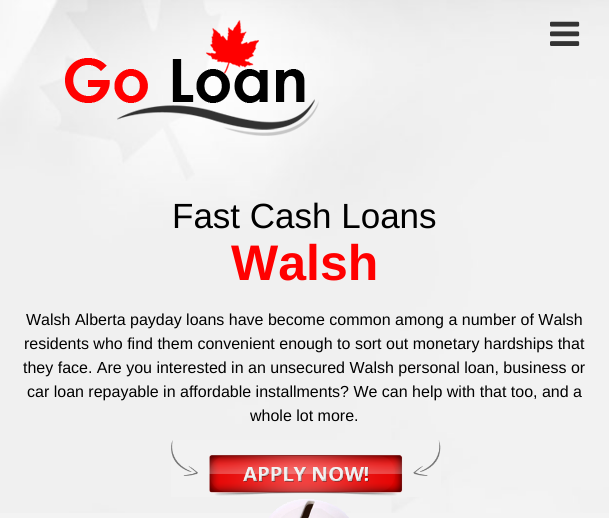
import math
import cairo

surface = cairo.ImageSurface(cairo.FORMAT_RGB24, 609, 518)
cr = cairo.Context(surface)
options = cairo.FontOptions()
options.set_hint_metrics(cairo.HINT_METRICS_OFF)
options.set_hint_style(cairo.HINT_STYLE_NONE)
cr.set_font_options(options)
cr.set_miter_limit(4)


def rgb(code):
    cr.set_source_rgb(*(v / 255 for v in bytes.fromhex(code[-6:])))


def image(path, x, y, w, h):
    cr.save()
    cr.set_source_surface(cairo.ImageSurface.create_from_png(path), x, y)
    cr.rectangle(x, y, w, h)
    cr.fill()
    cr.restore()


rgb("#f3f3f3")
cr.paint()
image("img/1.png", 0, 0, 609, 513)
image("img/2.png", 65, 20, 254, 116)
image("img/3.png", 550, 21, 30, 25)
image("img/4.png", 171, 440, 270, 57)
image("img/5.png", 269, 499, 80, 19)
cr.select_font_face("Liberation Sans")
cr.set_font_size(35)
rgb("#000000")
cr.move_to(172, 228)
cr.show_text("Fast Cash Loans")
cr.select_font_face("Liberation Sans", cairo.FONT_SLANT_NORMAL, cairo.FONT_WEIGHT_BOLD)
cr.set_font_size(50)
rgb("#ff0000")
cr.move_to(231, 280)
cr.show_text("Walsh")
cr.select_font_face("Liberation Sans")
cr.set_font_size(16)
rgb("#000000")
for x, y, s in [
    (26, 325, "Walsh Alberta payday loans have become common among a number of Walsh"),
    (24, 349, "residents who find them convenient enough to sort out monetary hardships that"),
    (23, 373, "they face. Are you interested in an unsecured Walsh personal loan, business or"),
    (27, 397, "car loan repayable in affordable installments? We can help with that too, and a"),
    (250, 421, "whole lot more."),
]:
    cr.move_to(x, y)
    cr.show_text(s)
surface.write_to_png("page.png")
